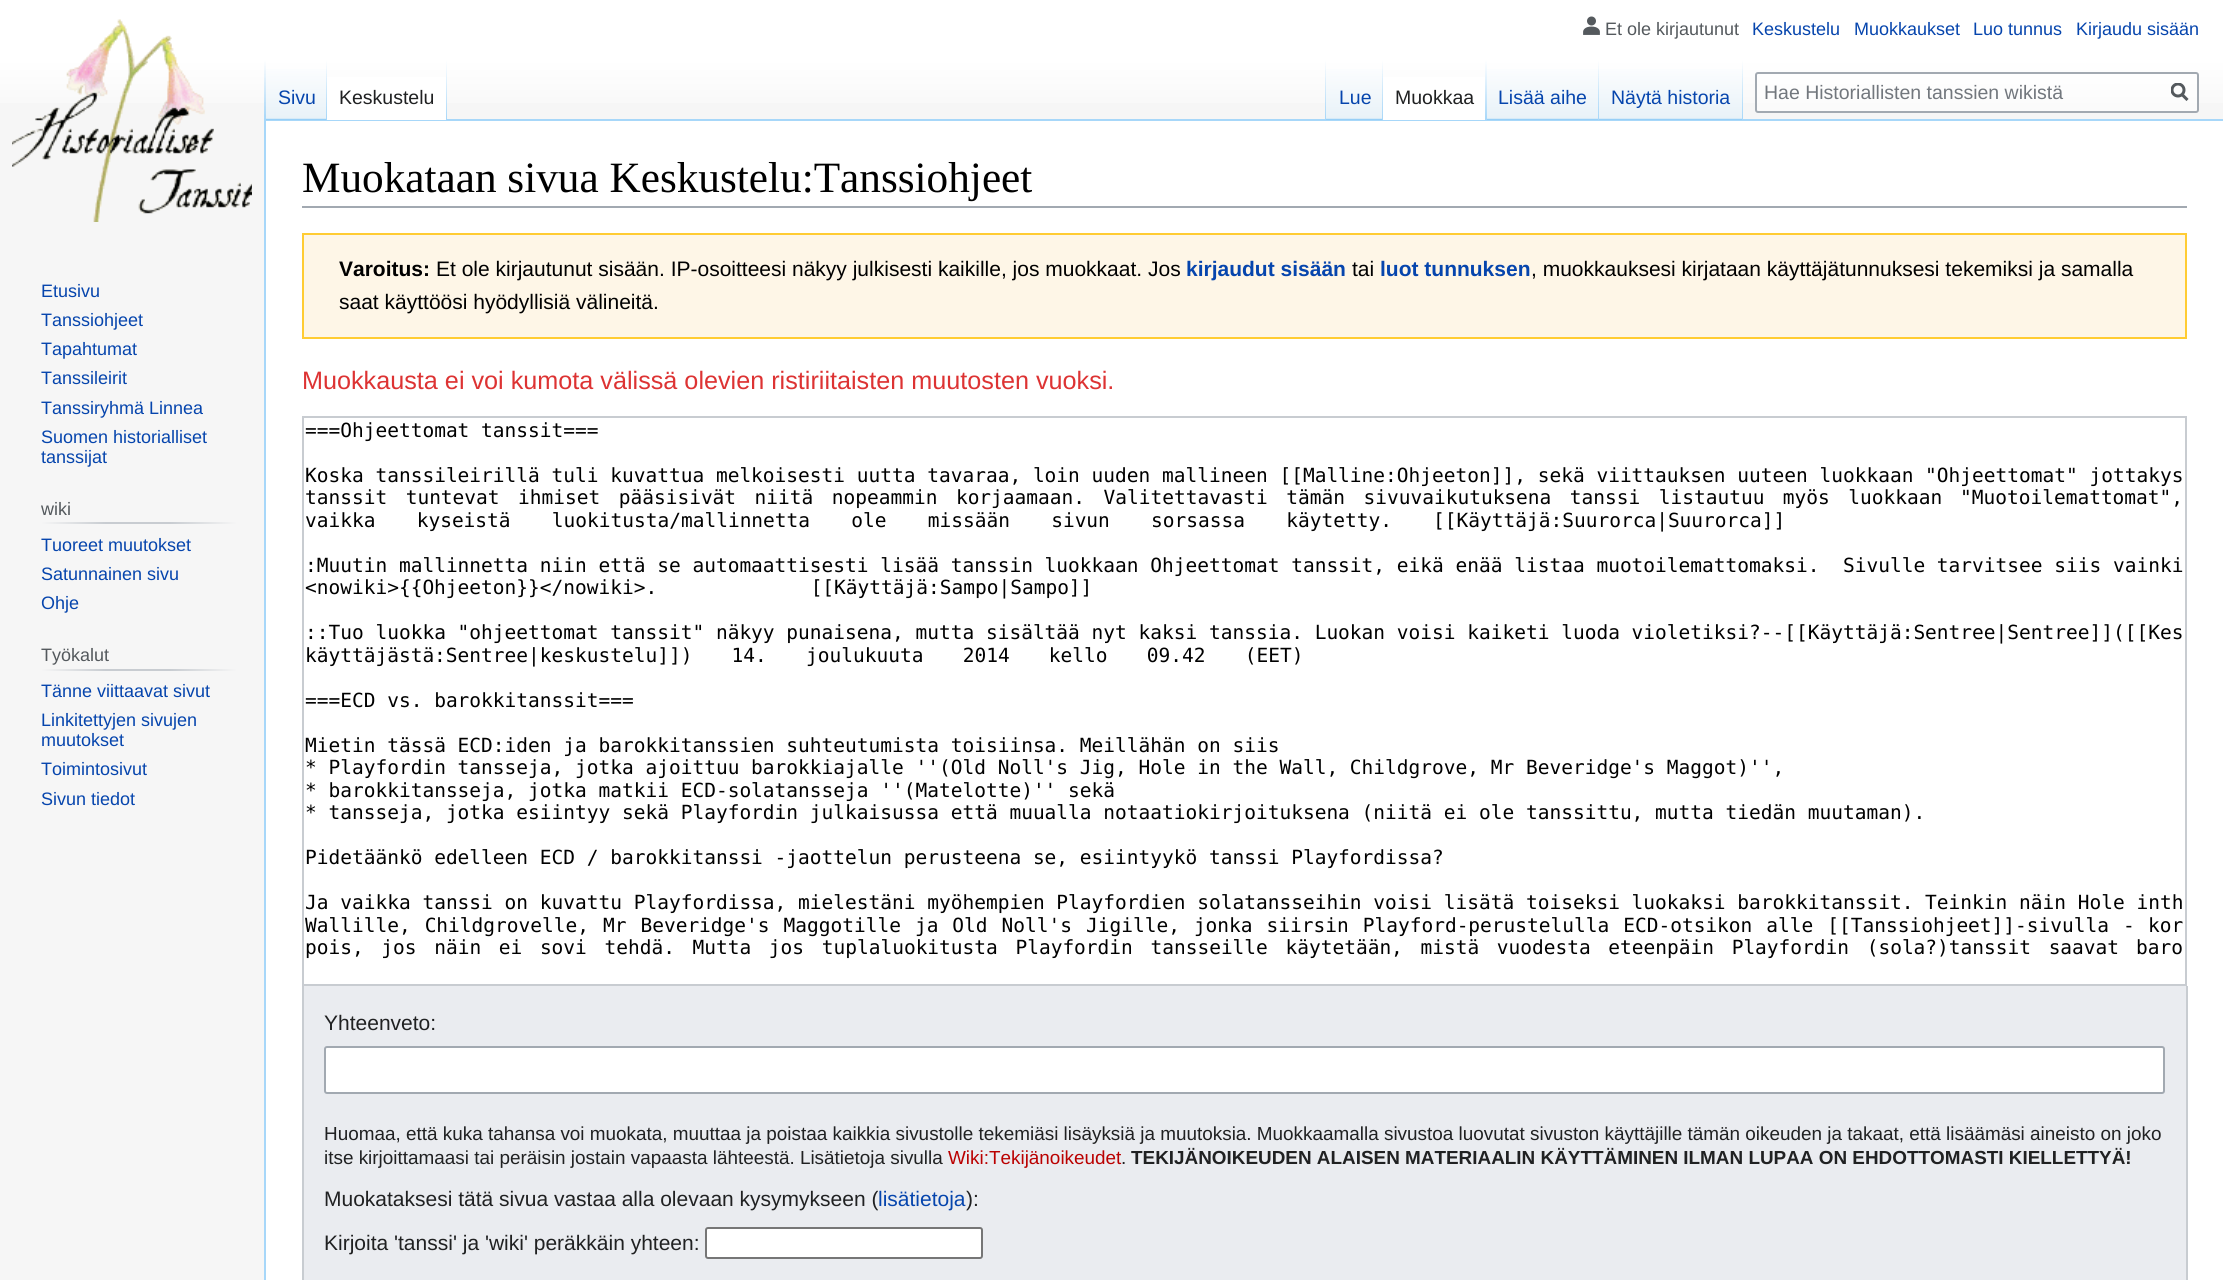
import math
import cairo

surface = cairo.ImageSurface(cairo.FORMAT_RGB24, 2223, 1280)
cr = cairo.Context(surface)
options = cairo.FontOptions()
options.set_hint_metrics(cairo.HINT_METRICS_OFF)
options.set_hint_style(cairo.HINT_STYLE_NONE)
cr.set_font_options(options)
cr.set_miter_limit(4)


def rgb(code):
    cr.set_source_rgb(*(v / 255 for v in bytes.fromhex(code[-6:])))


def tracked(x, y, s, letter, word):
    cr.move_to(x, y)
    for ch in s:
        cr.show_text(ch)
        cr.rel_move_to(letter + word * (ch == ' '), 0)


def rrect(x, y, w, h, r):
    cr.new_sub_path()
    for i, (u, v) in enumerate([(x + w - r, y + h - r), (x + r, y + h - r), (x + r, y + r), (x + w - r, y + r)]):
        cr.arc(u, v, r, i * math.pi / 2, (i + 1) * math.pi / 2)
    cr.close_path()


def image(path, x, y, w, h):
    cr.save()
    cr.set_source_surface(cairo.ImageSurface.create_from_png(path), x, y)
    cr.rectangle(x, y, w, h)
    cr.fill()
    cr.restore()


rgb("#f6f6f6")
cr.paint()
gradient = cairo.LinearGradient(1112, 0, 1112, 120)
gradient.add_color_stop_rgba(0.5, 1, 1, 1, 1)
gradient.add_color_stop_rgba(1, 0.965, 0.965, 0.965, 1)
cr.set_source(gradient)
cr.rectangle(0, 0, 2223, 103)
cr.fill()
image("img/1.png", 1583, 16, 17, 19)
rgb("#a7d7f9")
cr.rectangle(264, 119, 1959, 2)
cr.fill()
cr.rectangle(264, 119, 2, 1161)
cr.fill()
gradient = cairo.LinearGradient(265, 60, 265, 120)
gradient.add_color_stop_rgba(0, 0.655, 0.843, 0.976, 0)
gradient.add_color_stop_rgba(1, 0.655, 0.843, 0.976, 1)
cr.set_source(gradient)
cr.rectangle(264, 60, 2, 60)
cr.fill()
gradient = cairo.LinearGradient(296, 120, 296, 60)
gradient.add_color_stop_rgba(0, 0.467, 0.757, 0.965, 1)
gradient.add_color_stop_rgba(0.03, 0.91, 0.949, 0.973, 1)
gradient.add_color_stop_rgba(1, 1, 1, 1, 1)
cr.set_source(gradient)
cr.rectangle(266, 69, 61, 51)
cr.fill()
gradient = cairo.LinearGradient(326, 60, 326, 120)
gradient.add_color_stop_rgba(0, 0.655, 0.843, 0.976, 0)
gradient.add_color_stop_rgba(1, 0.655, 0.843, 0.976, 1)
cr.set_source(gradient)
cr.rectangle(326, 60, 1, 60)
cr.fill()
rgb("#ffffff")
cr.rectangle(327, 77, 119, 43)
cr.fill()
gradient = cairo.LinearGradient(446, 60, 446, 120)
gradient.add_color_stop_rgba(0, 1, 1, 1, 1)
gradient.add_color_stop_rgba(1, 0.655, 0.843, 0.976, 1)
cr.set_source(gradient)
cr.rectangle(446, 60, 1, 60)
cr.fill()
gradient = cairo.LinearGradient(1325, 60, 1325, 120)
gradient.add_color_stop_rgba(0, 0.655, 0.843, 0.976, 0)
gradient.add_color_stop_rgba(1, 0.655, 0.843, 0.976, 1)
cr.set_source(gradient)
cr.rectangle(1325, 60, 1, 60)
cr.fill()
gradient = cairo.LinearGradient(1355, 120, 1355, 60)
gradient.add_color_stop_rgba(0, 0.467, 0.757, 0.965, 1)
gradient.add_color_stop_rgba(0.03, 0.91, 0.949, 0.973, 1)
gradient.add_color_stop_rgba(1, 1, 1, 1, 1)
cr.set_source(gradient)
cr.rectangle(1326, 69, 57, 51)
cr.fill()
gradient = cairo.LinearGradient(1382, 60, 1382, 120)
gradient.add_color_stop_rgba(0, 0.655, 0.843, 0.976, 0)
gradient.add_color_stop_rgba(1, 0.655, 0.843, 0.976, 1)
cr.set_source(gradient)
cr.rectangle(1382, 60, 1, 60)
cr.fill()
rgb("#ffffff")
cr.rectangle(1383, 77, 102, 43)
cr.fill()
gradient = cairo.LinearGradient(1486, 60, 1486, 120)
gradient.add_color_stop_rgba(0, 1, 1, 1, 1)
gradient.add_color_stop_rgba(1, 0.655, 0.843, 0.976, 1)
cr.set_source(gradient)
cr.rectangle(1485, 60, 2, 60)
cr.fill()
gradient = cairo.LinearGradient(1543, 120, 1543, 60)
gradient.add_color_stop_rgba(0, 0.467, 0.757, 0.965, 1)
gradient.add_color_stop_rgba(0.03, 0.91, 0.949, 0.973, 1)
gradient.add_color_stop_rgba(1, 1, 1, 1, 1)
cr.set_source(gradient)
cr.rectangle(1487, 69, 112, 51)
cr.fill()
gradient = cairo.LinearGradient(1598, 60, 1598, 120)
gradient.add_color_stop_rgba(0, 0.655, 0.843, 0.976, 0)
gradient.add_color_stop_rgba(1, 0.655, 0.843, 0.976, 1)
cr.set_source(gradient)
cr.rectangle(1598, 60, 1, 60)
cr.fill()
gradient = cairo.LinearGradient(1671, 120, 1671, 60)
gradient.add_color_stop_rgba(0, 0.467, 0.757, 0.965, 1)
gradient.add_color_stop_rgba(0.03, 0.91, 0.949, 0.973, 1)
gradient.add_color_stop_rgba(1, 1, 1, 1, 1)
cr.set_source(gradient)
cr.rectangle(1599, 69, 144, 51)
cr.fill()
gradient = cairo.LinearGradient(1742, 60, 1742, 120)
gradient.add_color_stop_rgba(0, 0.655, 0.843, 0.976, 0)
gradient.add_color_stop_rgba(1, 0.655, 0.843, 0.976, 1)
cr.set_source(gradient)
cr.rectangle(1742, 60, 1, 60)
cr.fill()
cr.set_source_rgba(1, 1, 1, 0.5)
rrect(1756, 73, 442, 39, 2)
cr.fill_preserve()
rgb("#a2a9b1")
cr.stroke()
cr.new_path()
cr.move_to(2187.5, 100)
cr.line_to(2181.5, 94)
rgb("#54595d")
cr.set_line_width(3)
cr.stroke()
cr.save()
cr.rectangle(2171, 83, 18, 19)
cr.clip()
cr.arc(2178, 90, 6, 0, 2 * math.pi)
cr.stroke()
cr.restore()
image("img/2.png", 12, 19, 240, 203)
gradient = cairo.LinearGradient(41, 523, 237, 523)
gradient.add_color_stop_rgba(0, 0.965, 0.965, 0.965, 1)
gradient.add_color_stop_rgba(0.33, 0.784, 0.8, 0.82, 1)
gradient.add_color_stop_rgba(0.66, 0.784, 0.8, 0.82, 1)
gradient.add_color_stop_rgba(1, 0.965, 0.965, 0.965, 1)
cr.set_source(gradient)
cr.rectangle(41, 522, 196, 2)
cr.fill()
gradient = cairo.LinearGradient(41, 670, 237, 670)
gradient.add_color_stop_rgba(0, 0.965, 0.965, 0.965, 1)
gradient.add_color_stop_rgba(0.33, 0.784, 0.8, 0.82, 1)
gradient.add_color_stop_rgba(0.66, 0.784, 0.8, 0.82, 1)
gradient.add_color_stop_rgba(1, 0.965, 0.965, 0.965, 1)
cr.set_source(gradient)
cr.rectangle(41, 669, 196, 2)
cr.fill()
rgb("#ffffff")
cr.rectangle(266, 121, 1957, 1159)
cr.fill()
rgb("#a2a9b1")
cr.rectangle(302, 206, 1885, 2)
cr.fill()
rgb("#fef6e7")
cr.rectangle(303, 234, 1883, 104)
cr.fill_preserve()
rgb("#ffcc33")
cr.set_line_width(2)
cr.stroke()
cr.rectangle(303, 417, 1883, 568)
rgb("#c8ccd1")
cr.stroke()
for x, y, w, h, color in [
    (304, 986, 1882, 294, "#eaecf0"),
    (2186, 986, 2, 294, "#c8ccd1"),
    (302, 986, 2, 294, "#c8ccd1"),
]:
    rgb(color)
    cr.rectangle(x, y, w, h)
    cr.fill()
rgb("#ffffff")
rrect(325, 1047, 1839, 46, 2)
cr.fill_preserve()
rgb("#a2a9b1")
cr.stroke()
rgb("#ffffff")
rrect(706, 1228, 276, 30, 2)
cr.fill_preserve()
rgb("#767676")
cr.stroke()
cr.select_font_face("Liberation Sans")
cr.set_font_size(18)
rgb("#54595d")
cr.move_to(1605, 35)
cr.show_text("Et ole kirjautunut")
rgb("#0645ad")
for x, y, s in [
    (1752, 35, "Keskustelu"),
    (1854, 35, "Muokkaukset"),
    (1973, 35, "Luo tunnus"),
    (2076, 35, "Kirjaudu sisään"),
]:
    cr.move_to(x, y)
    cr.show_text(s)
cr.set_font_size(19.5)
cr.move_to(278, 104)
cr.show_text("Sivu")
rgb("#202122")
cr.move_to(339, 104)
cr.show_text("Keskustelu")
rgb("#0645ad")
cr.move_to(1339, 104)
cr.show_text("Lue")
rgb("#202122")
cr.move_to(1395, 104)
cr.show_text("Muokkaa")
rgb("#0645ad")
cr.move_to(1498, 104)
cr.show_text("Lisää aihe")
cr.move_to(1611, 104)
cr.show_text("Näytä historia")
rgb("#72777d")
cr.move_to(1764, 99)
cr.show_text("Hae Historiallisten tanssien wikistä")
cr.set_font_size(18)
rgb("#0645ad")
for x, y, s in [
    (41, 297, "Etusivu"),
    (41, 326, "Tanssiohjeet"),
    (41, 355, "Tapahtumat"),
    (41, 384, "Tanssileirit"),
    (41, 414, "Tanssiryhmä Linnea"),
    (41, 443, "Suomen historialliset"),
    (41, 463, "tanssijat"),
]:
    cr.move_to(x, y)
    cr.show_text(s)
rgb("#54595d")
cr.move_to(41, 515)
cr.show_text("wiki")
rgb("#0645ad")
for x, y, s in [
    (41, 551, "Tuoreet muutokset"),
    (41, 580, "Satunnainen sivu"),
    (41, 609, "Ohje"),
]:
    cr.move_to(x, y)
    cr.show_text(s)
rgb("#54595d")
cr.move_to(41, 661)
cr.show_text("Työkalut")
rgb("#0645ad")
for x, y, s in [
    (41, 697, "Tänne viittaavat sivut"),
    (41, 726, "Linkitettyjen sivujen"),
    (41, 746, "muutokset"),
    (41, 775, "Toimintosivut"),
    (41, 805, "Sivun tiedot"),
]:
    cr.move_to(x, y)
    cr.show_text(s)
cr.select_font_face("Liberation Serif")
cr.set_font_size(43.25)
rgb("#000000")
cr.move_to(302, 192)
cr.show_text("Muokataan sivua Keskustelu:Tanssiohjeet")
cr.select_font_face("Liberation Sans", cairo.FONT_SLANT_NORMAL, cairo.FONT_WEIGHT_BOLD)
cr.set_font_size(21)
cr.move_to(339, 276)
cr.show_text("Varoitus:")
cr.select_font_face("Liberation Sans")
cr.move_to(436, 276)
cr.show_text("Et ole kirjautunut sisään. IP-osoitteesi näkyy julkisesti kaikille, jos muokkaat. Jos")
cr.select_font_face("Liberation Sans", cairo.FONT_SLANT_NORMAL, cairo.FONT_WEIGHT_BOLD)
rgb("#0645ad")
cr.move_to(1186, 276)
cr.show_text("kirjaudut sisään")
cr.select_font_face("Liberation Sans")
rgb("#000000")
cr.move_to(1352, 276)
cr.show_text("tai")
cr.select_font_face("Liberation Sans", cairo.FONT_SLANT_NORMAL, cairo.FONT_WEIGHT_BOLD)
rgb("#0645ad")
cr.move_to(1380, 276)
cr.show_text("luot tunnuksen")
cr.select_font_face("Liberation Sans")
rgb("#000000")
cr.move_to(1531, 276)
cr.show_text(", muokkauksesi kirjataan käyttäjätunnuksesi tekemiksi ja samalla")
cr.move_to(339, 309)
cr.show_text("saat käyttöösi hyödyllisiä välineitä.")
cr.set_font_size(25.2)
rgb("#dd3333")
cr.move_to(302, 389)
cr.show_text("Muokkausta ei voi kumota välissä olevien ristiriitaisten muutosten vuoksi.")
cr.select_font_face("DejaVu Sans Mono")
cr.set_font_size(19.5)
rgb("#000000")
cr.move_to(305, 437)
cr.show_text("===Ohjeettomat tanssit===")
cr.move_to(305, 482)
cr.show_text("Koska tanssileirillä tuli kuvattua melkoisesti uutta tavaraa, loin uuden mallineen [[Malline:Ohjeeton]], sekä viittauksen uuteen luokkaan \"Ohjeettomat\" jottakys")
tracked(305, 504, "tanssit tuntevat ihmiset pääsisivät niitä nopeammin korjaamaan. Valitettavasti tämän sivuvaikutuksena tanssi listautuu myös luokkaan", 0, 6.75)
cr.move_to(1960, 504)
cr.show_text("\"Muotoilemattomat\",")
tracked(305, 527, "vaikka kyseistä luokitusta/mallinnetta ole missään sivun sorsassa käytetty. [[Käyttäjä:Suurorca|Suurorca]]", 0, 29.5)
cr.move_to(305, 572)
cr.show_text(":Muutin mallinnetta niin että se automaattisesti lisää tanssin luokkaan Ohjeettomat tanssit, eikä enää listaa muotoilemattomaksi.  Sivulle tarvitsee siis vainki")
tracked(305, 594, "<nowiki>{{Ohjeeton}}</nowiki>.  [[Käyttäjä:Sampo|Sampo]]", 0, 65)
cr.move_to(305, 639)
cr.show_text("::Tuo luokka \"ohjeettomat tanssit\" näkyy punaisena, mutta sisältää nyt kaksi tanssia. Luokan voisi kaiketi luoda violetiksi?--[[Käyttäjä:Sentree|Sentree]]([[Kes")
tracked(305, 662, "käyttäjästä:Sentree|keskustelu]]) 14. joulukuuta 2014 kello 09.42 (EET)", 0, 27.5)
for x, y, s in [
    (305, 707, "===ECD vs. barokkitanssit==="),
    (305, 752, "Mietin tässä ECD:iden ja barokkitanssien suhteutumista toisiinsa. Meillähän on siis"),
    (305, 774, "* Playfordin tansseja, jotka ajoittuu barokkiajalle ''(Old Noll's Jig, Hole in the Wall, Childgrove, Mr Beveridge's Maggot)'',"),
    (305, 797, "* barokkitansseja, jotka matkii ECD-solatansseja ''(Matelotte)'' sekä"),
    (305, 819, "* tansseja, jotka esiintyy sekä Playfordin julkaisussa että muualla notaatiokirjoituksena (niitä ei ole tanssittu, mutta tiedän muutaman)."),
    (305, 864, "Pidetäänkö edelleen ECD / barokkitanssi -jaottelun perusteena se, esiintyykö tanssi Playfordissa?"),
    (305, 909, "Ja vaikka tanssi on kuvattu Playfordissa, mielestäni myöhempien Playfordien solatansseihin voisi lisätä toiseksi luokaksi barokkitanssit. Teinkin näin Hole inth"),
]:
    cr.move_to(x, y)
    cr.show_text(s)
tracked(305, 932, "Wallille, Childgrovelle, Mr Beveridge's Maggotille ja Old Noll's Jigille, jonka siirsin Playford-perustelulla ECD-otsikon alle [[Tanssiohjeet]]-sivulla -", 0, 2.25)
cr.move_to(2148, 932)
cr.show_text("kor")
tracked(305, 954, "pois, jos näin ei sovi tehdä. Mutta jos tuplaluokitusta Playfordin tansseille käytetään, mistä vuodesta eteenpäin Playfordin (sola?)tanssit saavat", 0, 5.9)
cr.move_to(2136, 954)
cr.show_text("baro")
cr.select_font_face("Liberation Sans")
cr.set_font_size(21)
rgb("#202122")
cr.move_to(324, 1030)
cr.show_text("Yhteenveto:")
cr.set_font_size(18.9)
cr.move_to(324, 1140)
cr.show_text("Huomaa, että kuka tahansa voi muokata, muuttaa ja poistaa kaikkia sivustolle tekemiäsi lisäyksiä ja muutoksia. Muokkaamalla sivustoa luovutat sivuston käyttäjille tämän oikeuden ja takaat, että lisäämäsi aineisto on joko")
cr.move_to(324, 1164)
cr.show_text("itse kirjoittamaasi tai peräisin jostain vapaasta lähteestä. Lisätietoja sivulla")
rgb("#ba0000")
cr.move_to(948, 1164)
cr.show_text("Wiki:Tekijänoikeudet")
rgb("#202122")
cr.move_to(1121, 1164)
cr.show_text(".")
cr.select_font_face("Liberation Sans", cairo.FONT_SLANT_NORMAL, cairo.FONT_WEIGHT_BOLD)
cr.move_to(1131, 1164)
cr.show_text("TEKIJÄNOIKEUDEN ALAISEN MATERIAALIN KÄYTTÄMINEN ILMAN LUPAA ON EHDOTTOMASTI KIELLETTYÄ!")
cr.select_font_face("Liberation Sans")
cr.set_font_size(21)
cr.move_to(324, 1206)
cr.show_text("Muokataksesi tätä sivua vastaa alla olevaan kysymykseen (")
rgb("#0645ad")
cr.move_to(878, 1206)
cr.show_text("lisätietoja")
rgb("#202122")
cr.move_to(966, 1206)
cr.show_text("):")
cr.move_to(324, 1250)
cr.show_text("Kirjoita 'tanssi' ja 'wiki' peräkkäin yhteen:")
surface.write_to_png("page.png")
